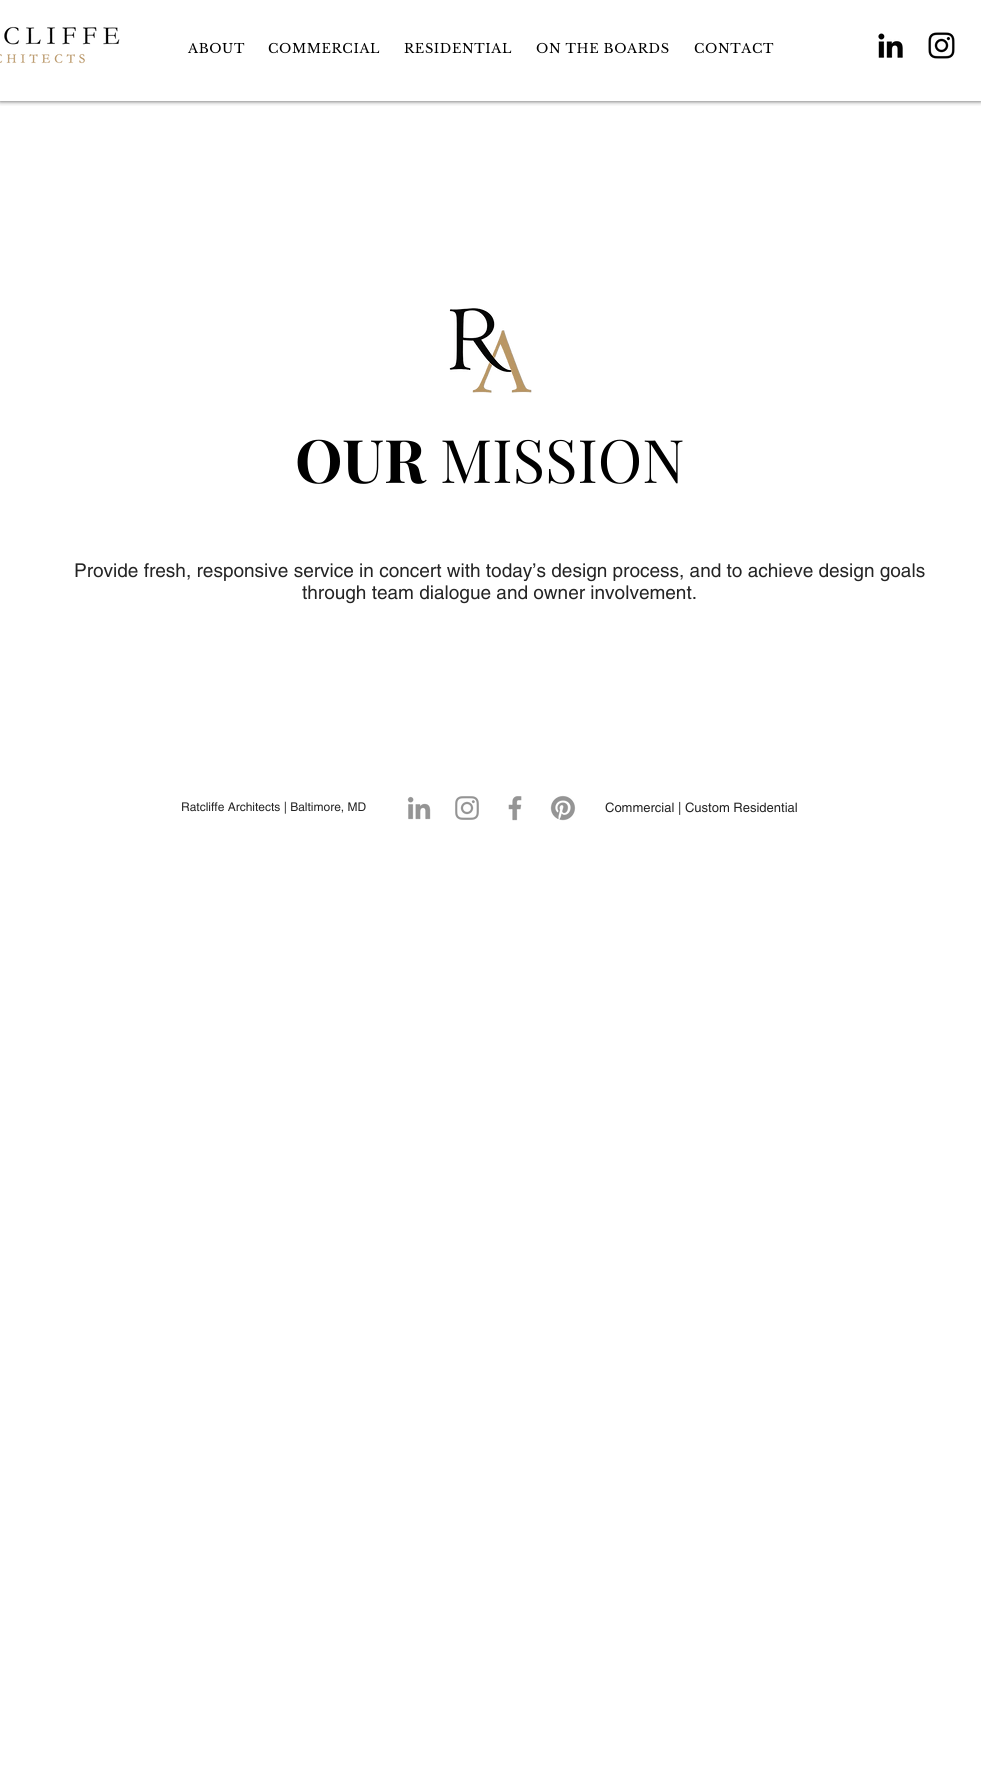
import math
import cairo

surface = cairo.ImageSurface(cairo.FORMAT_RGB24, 981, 1785)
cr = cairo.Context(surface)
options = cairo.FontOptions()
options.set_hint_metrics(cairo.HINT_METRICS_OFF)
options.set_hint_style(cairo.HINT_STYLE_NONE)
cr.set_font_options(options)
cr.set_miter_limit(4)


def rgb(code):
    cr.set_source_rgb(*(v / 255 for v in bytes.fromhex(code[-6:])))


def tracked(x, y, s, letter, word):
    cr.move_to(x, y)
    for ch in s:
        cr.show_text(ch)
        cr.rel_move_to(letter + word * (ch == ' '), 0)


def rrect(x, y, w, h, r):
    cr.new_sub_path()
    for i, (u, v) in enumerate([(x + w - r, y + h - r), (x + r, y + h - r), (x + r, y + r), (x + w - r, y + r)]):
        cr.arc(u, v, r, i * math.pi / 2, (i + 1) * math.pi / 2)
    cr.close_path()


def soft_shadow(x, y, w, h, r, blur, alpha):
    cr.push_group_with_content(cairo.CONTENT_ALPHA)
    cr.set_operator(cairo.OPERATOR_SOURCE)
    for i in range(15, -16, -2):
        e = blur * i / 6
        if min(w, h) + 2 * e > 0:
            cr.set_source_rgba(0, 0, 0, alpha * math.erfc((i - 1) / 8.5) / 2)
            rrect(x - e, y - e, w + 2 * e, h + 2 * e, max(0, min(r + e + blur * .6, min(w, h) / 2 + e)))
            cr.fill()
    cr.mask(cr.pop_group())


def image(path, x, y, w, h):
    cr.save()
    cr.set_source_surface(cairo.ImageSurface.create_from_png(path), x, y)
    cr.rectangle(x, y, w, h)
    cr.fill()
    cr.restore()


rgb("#ffffff")
cr.paint()
cr.save()
cr.rectangle(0, 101, 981, 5)
cr.clip()
rgb("#000000")
soft_shadow(0, 0, 981, 101, 0, 2.5, 0.7)
cr.restore()
image("img/1.png", 0, 26, 120, 38)
image("img/2.png", 878, 33, 25, 25)
image("img/3.png", 928, 32, 27, 27)
image("img/4.png", 449, 308, 83, 85)
image("img/5.png", 407, 796, 24, 24)
image("img/6.png", 455, 796, 24, 24)
image("img/7.png", 508, 796, 14, 25)
image("img/8.png", 550, 795, 26, 26)
cr.select_font_face("Libre Baskerville")
cr.set_font_size(13)
rgb("#000000")
for x, y, s in [
    (188, 53, "ABOUT"),
    (268, 53, "COMMERCIAL"),
    (404, 53, "RESIDENTIAL"),
    (536, 53, "ON THE BOARDS"),
    (694, 53, "CONTACT"),
]:
    tracked(x, y, s, 0.6, 0)
cr.select_font_face("Playfair Display", cairo.FONT_SLANT_NORMAL, cairo.FONT_WEIGHT_BOLD)
cr.set_font_size(60)
cr.move_to(295, 483)
cr.show_text("OUR")
cr.select_font_face("Playfair Display")
cr.move_to(440, 483)
cr.show_text("MISSION")
cr.select_font_face("helvetica")
cr.set_font_size(19)
rgb("#242424")
cr.move_to(74, 577)
cr.show_text("Provide fresh, responsive service in concert with today’s design process, and to achieve design goals")
cr.move_to(302, 599)
cr.show_text("through team dialogue and owner involvement.")
cr.set_font_size(12)
cr.move_to(181, 811)
cr.show_text("Ratcliffe Architects | Baltimore, MD")
cr.set_font_size(13)
cr.move_to(605, 812)
cr.show_text("Commercial | Custom Residential")
surface.write_to_png("page.png")
